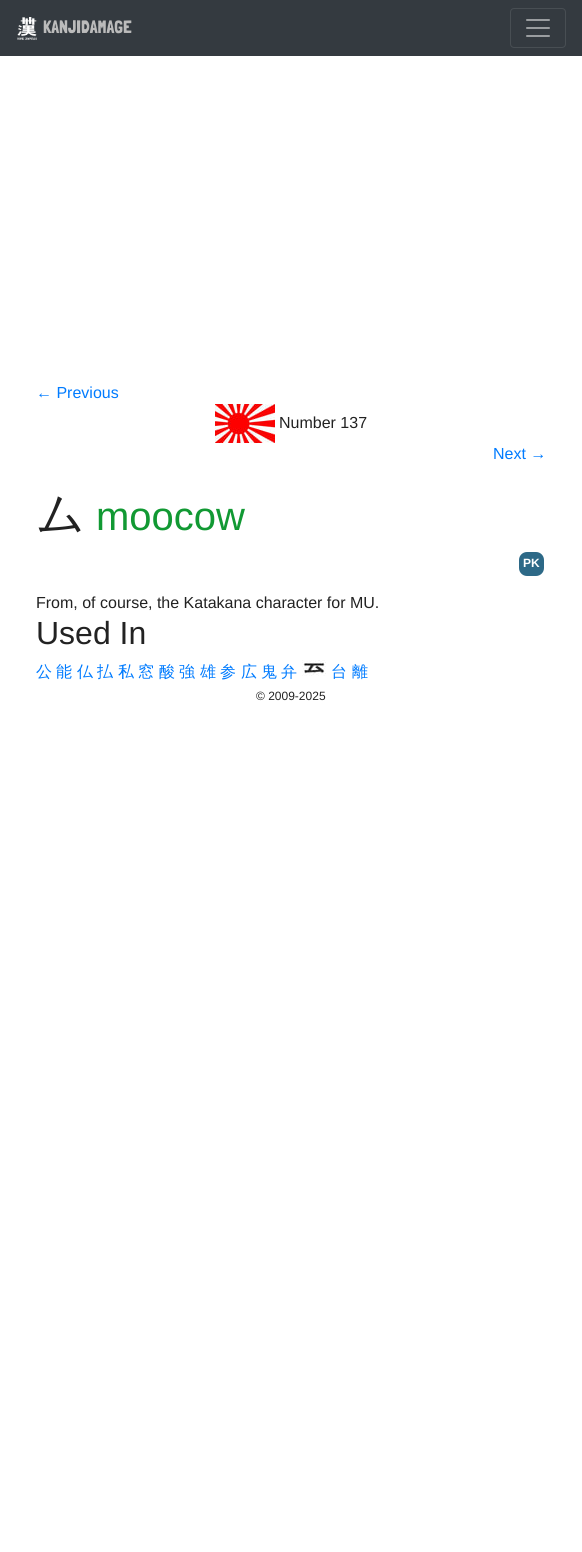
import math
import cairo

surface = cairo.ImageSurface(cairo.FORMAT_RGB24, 582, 1552)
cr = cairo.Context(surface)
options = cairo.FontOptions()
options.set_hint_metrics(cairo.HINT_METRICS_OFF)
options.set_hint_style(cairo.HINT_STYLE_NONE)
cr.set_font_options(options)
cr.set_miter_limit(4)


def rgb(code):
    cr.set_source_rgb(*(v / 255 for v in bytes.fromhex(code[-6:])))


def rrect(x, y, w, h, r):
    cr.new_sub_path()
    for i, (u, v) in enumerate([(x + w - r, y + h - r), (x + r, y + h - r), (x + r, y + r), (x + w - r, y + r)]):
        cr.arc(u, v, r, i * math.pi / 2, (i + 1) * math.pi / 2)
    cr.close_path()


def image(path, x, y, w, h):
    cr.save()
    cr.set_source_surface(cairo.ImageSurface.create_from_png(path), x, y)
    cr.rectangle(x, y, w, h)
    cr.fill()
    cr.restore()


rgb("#ffffff")
cr.paint()
rgb("#343a40")
cr.rectangle(0, 0, 582, 56)
cr.fill()
image("img/1.png", 17, 17, 20, 23)
rrect(510.5, 8.5, 55, 39, 3.5)
rgb("#484e53")
cr.set_line_width(1)
cr.stroke()
image("img/2.png", 526, 19, 24, 18)
image("img/3.png", 215, 404, 60, 39)
rgb("#2d6987")
rrect(519, 552, 25, 24, 8)
cr.fill()
image("img/4.png", 302, 660, 24, 16)
cr.select_font_face("Londrina Solid")
cr.set_font_size(18)
rgb("#bbbbbb")
cr.move_to(43, 33)
cr.show_text("KANJIDAMAGE")
cr.select_font_face("Liberation Sans")
cr.set_font_size(16)
rgb("#007bff")
cr.move_to(36, 398)
cr.show_text("← Previous")
rgb("#222222")
cr.move_to(279, 428)
cr.show_text("Number 137")
rgb("#007bff")
cr.move_to(493, 459)
cr.show_text("Next →")
cr.select_font_face("WenQuanYi Zen Hei Medium")
cr.set_font_size(48)
rgb("#222222")
cr.move_to(36, 530)
cr.show_text("ム")
cr.select_font_face("Liberation Sans")
cr.set_font_size(40)
rgb("#119933")
cr.move_to(96, 530)
cr.show_text("moocow")
cr.select_font_face("Liberation Sans", cairo.FONT_SLANT_NORMAL, cairo.FONT_WEIGHT_BOLD)
cr.set_font_size(12)
rgb("#ffffff")
cr.move_to(523, 567)
cr.show_text("PK")
cr.select_font_face("Liberation Sans")
cr.set_font_size(16)
rgb("#222222")
cr.move_to(36, 608)
cr.show_text("From, of course, the Katakana character for MU.")
cr.set_font_size(32)
cr.move_to(36, 644)
cr.show_text("Used In")
cr.select_font_face("WenQuanYi Zen Hei Medium")
cr.set_font_size(16)
rgb("#007bff")
for x, y, s in [
    (36, 677, "公"),
    (56, 677, "能"),
    (77, 677, "仏"),
    (97, 677, "払"),
    (118, 677, "私"),
    (138, 677, "窓"),
    (159, 677, "酸"),
    (179, 677, "強"),
    (200, 677, "雄"),
    (220, 677, "参"),
    (241, 677, "広"),
    (261, 677, "鬼"),
    (281, 677, "弁"),
    (331, 677, "台"),
    (352, 677, "離"),
]:
    cr.move_to(x, y)
    cr.show_text(s)
cr.select_font_face("Liberation Sans")
cr.set_font_size(12)
rgb("#222222")
cr.move_to(256, 700)
cr.show_text("© 2009-2025")
surface.write_to_png("page.png")
